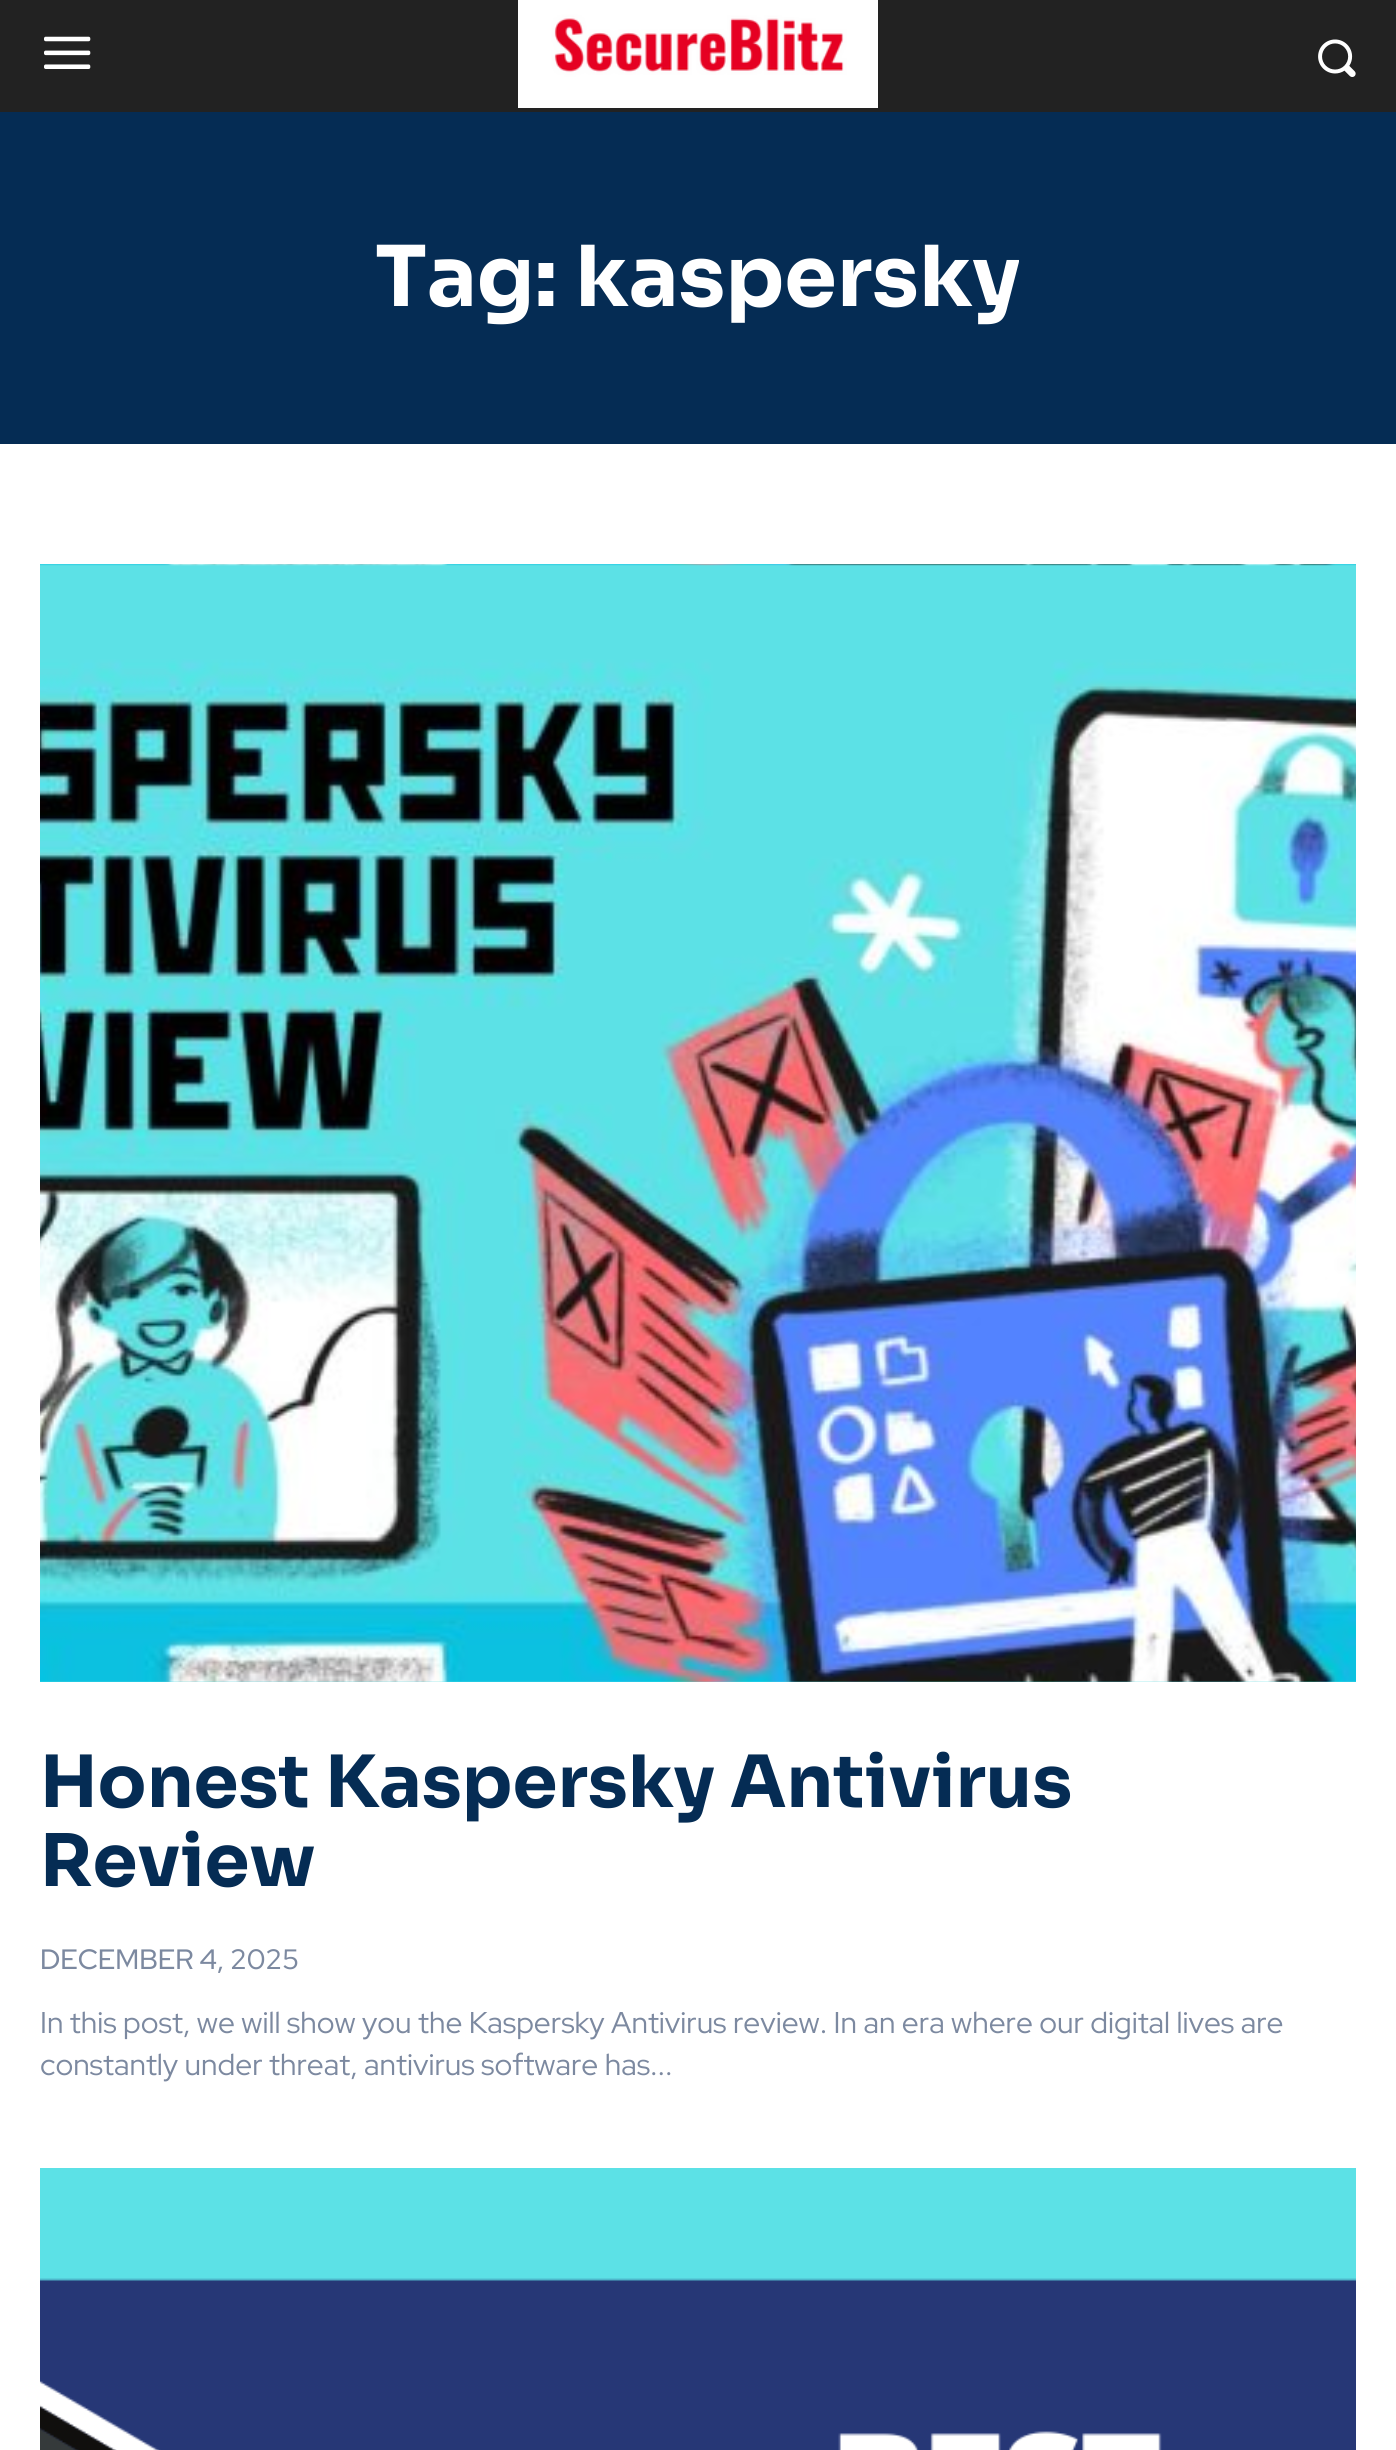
import math
import cairo

surface = cairo.ImageSurface(cairo.FORMAT_RGB24, 1396, 2450)
cr = cairo.Context(surface)
options = cairo.FontOptions()
options.set_hint_metrics(cairo.HINT_METRICS_OFF)
options.set_hint_style(cairo.HINT_STYLE_NONE)
cr.set_font_options(options)
cr.set_miter_limit(4)


def rgb(code):
    cr.set_source_rgb(*(v / 255 for v in bytes.fromhex(code[-6:])))


def image(path, x, y, w, h):
    cr.save()
    cr.set_source_surface(cairo.ImageSurface.create_from_png(path), x, y)
    cr.rectangle(x, y, w, h)
    cr.fill()
    cr.restore()


rgb("#ffffff")
cr.paint()
rgb("#222222")
cr.rectangle(0, 0, 1396, 112)
cr.fill()
image("img/1.png", 44, 36, 47, 33)
image("img/2.png", 518, 0, 360, 108)
image("img/3.png", 1318, 39, 38, 38)
rgb("#052c54")
cr.rectangle(0, 112, 1396, 332)
cr.fill()
image("img/4.png", 40, 564, 1316, 1118)
image("img/5.png", 40, 2168, 1316, 282)
cr.select_font_face("Sora", cairo.FONT_SLANT_NORMAL, cairo.FONT_WEIGHT_BOLD)
cr.set_font_size(84)
rgb("#ffffff")
cr.move_to(375, 306)
cr.show_text("Tag: kaspersky")
cr.set_font_size(72)
rgb("#052c54")
cr.move_to(40, 1807)
cr.show_text("Honest Kaspersky Antivirus")
cr.move_to(40, 1886)
cr.show_text("Review")
cr.select_font_face("Red Hat Display Medium")
cr.set_font_size(28)
rgb("#7c89a0")
cr.move_to(40, 1969)
cr.show_text("DECEMBER 4, 2025")
cr.select_font_face("Red Hat Display")
cr.set_font_size(30)
cr.move_to(40, 2033)
cr.show_text("In this post, we will show you the Kaspersky Antivirus review. In an era where our digital lives are")
cr.move_to(40, 2075)
cr.show_text("constantly under threat, antivirus software has...")
surface.write_to_png("page.png")
